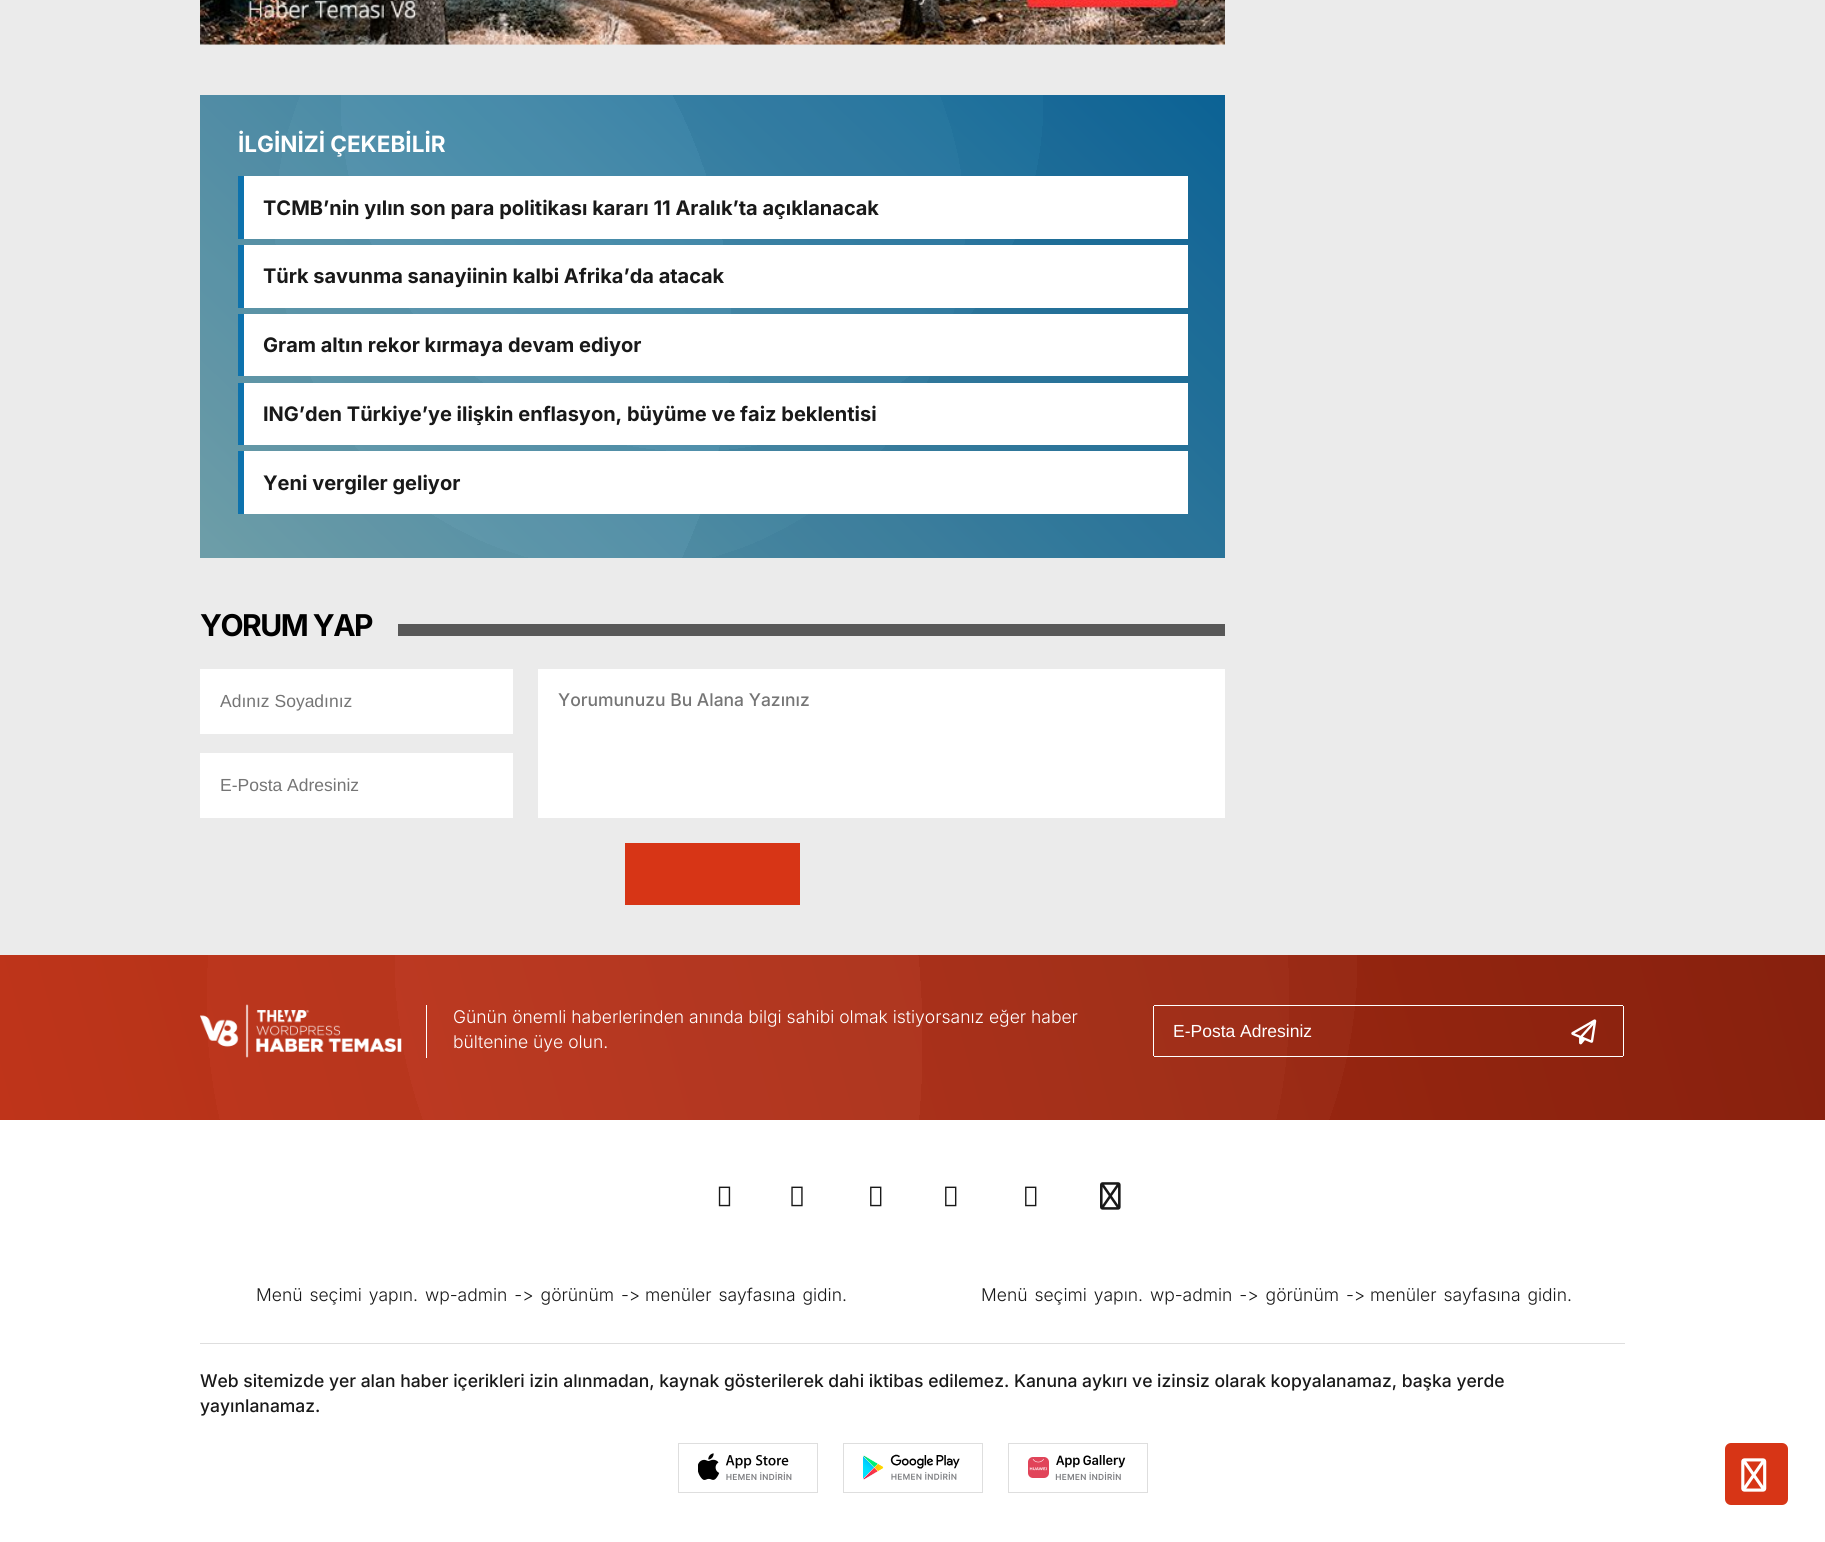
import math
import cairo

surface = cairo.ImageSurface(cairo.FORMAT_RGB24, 1825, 1542)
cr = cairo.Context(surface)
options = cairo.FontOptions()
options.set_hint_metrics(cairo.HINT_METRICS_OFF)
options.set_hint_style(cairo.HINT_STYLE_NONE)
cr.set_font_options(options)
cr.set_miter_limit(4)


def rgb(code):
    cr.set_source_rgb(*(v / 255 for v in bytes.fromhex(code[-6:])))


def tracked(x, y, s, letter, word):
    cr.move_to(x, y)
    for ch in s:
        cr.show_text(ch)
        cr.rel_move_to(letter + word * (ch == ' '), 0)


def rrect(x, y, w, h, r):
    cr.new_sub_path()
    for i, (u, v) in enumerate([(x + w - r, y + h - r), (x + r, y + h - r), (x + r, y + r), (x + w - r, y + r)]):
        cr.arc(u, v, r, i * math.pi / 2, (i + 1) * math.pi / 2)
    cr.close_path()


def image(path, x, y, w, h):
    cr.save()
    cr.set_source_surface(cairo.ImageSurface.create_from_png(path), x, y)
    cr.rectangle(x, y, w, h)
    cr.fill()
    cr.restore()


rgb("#ebebeb")
cr.paint()
image("img/1.png", 200, 0, 1025, 45)
gradient = cairo.LinearGradient(1075, -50, 350, 702)
gradient.add_color_stop_rgba(0, 0.051, 0.447, 0.678, 1)
gradient.add_color_stop_rgba(1, 0.471, 0.69, 0.741, 1)
cr.set_source(gradient)
cr.rectangle(200, 95, 1025, 463)
cr.fill()
gradient = cairo.RadialGradient(692, 100, 0, 692, 100, 703)
gradient.add_color_stop_rgba(0, 0.365, 0.365, 0.365, 0.05)
gradient.add_color_stop_rgba(0.5, 0.365, 0.365, 0.365, 0.05)
gradient.add_color_stop_rgba(0.5, 0.027, 0.027, 0.027, 0.05)
gradient.add_color_stop_rgba(1, 0.027, 0.027, 0.027, 0.05)
cr.set_source(gradient)
cr.rectangle(200, 95, 1025, 463)
cr.fill()
gradient = cairo.RadialGradient(620, 225, 0, 620, 225, 690)
gradient.add_color_stop_rgba(0, 0.318, 0.318, 0.318, 0.05)
gradient.add_color_stop_rgba(0.5, 0.318, 0.318, 0.318, 0.05)
gradient.add_color_stop_rgba(0.5, 0.027, 0.027, 0.027, 0.05)
gradient.add_color_stop_rgba(1, 0.027, 0.027, 0.027, 0.05)
cr.set_source(gradient)
cr.rectangle(200, 95, 1025, 463)
cr.fill()
gradient = cairo.RadialGradient(210, 336, 0, 210, 336, 1043)
gradient.add_color_stop_rgba(0, 0.545, 0.545, 0.545, 0.05)
gradient.add_color_stop_rgba(0.5, 0.545, 0.545, 0.545, 0.05)
gradient.add_color_stop_rgba(0.5, 0.082, 0.082, 0.082, 0.05)
gradient.add_color_stop_rgba(1, 0.082, 0.082, 0.082, 0.05)
cr.set_source(gradient)
cr.rectangle(200, 95, 1025, 463)
cr.fill()
for x, y, w, h, color in [
    (244, 176, 944, 63, "#ffffff"),
    (238, 176, 6, 63, "#0d72ad"),
    (244, 245, 944, 63, "#ffffff"),
    (238, 245, 6, 63, "#0d72ad"),
    (244, 314, 944, 62, "#ffffff"),
    (238, 314, 6, 62, "#0d72ad"),
    (244, 383, 944, 62, "#ffffff"),
    (238, 383, 6, 62, "#0d72ad"),
    (244, 451, 944, 63, "#ffffff"),
    (238, 451, 6, 63, "#0d72ad"),
    (398, 624, 827, 12, "#585858"),
    (200, 669, 313, 65, "#ffffff"),
    (200, 753, 313, 65, "#ffffff"),
    (538, 669, 687, 149, "#ffffff"),
    (625, 843, 175, 62, "#d73516"),
    (0, 1120, 1825, 422, "#ffffff"),
]:
    rgb(color)
    cr.rectangle(x, y, w, h)
    cr.fill()
gradient = cairo.LinearGradient(1784, 804, 41, 1271)
gradient.add_color_stop_rgba(0, 0.616, 0.149, 0.063, 1)
gradient.add_color_stop_rgba(1, 0.843, 0.208, 0.086, 1)
cr.set_source(gradient)
cr.rectangle(0, 955, 1825, 165)
cr.fill()
gradient = cairo.RadialGradient(876, 957, 0, 876, 957, 963)
gradient.add_color_stop_rgba(0, 0.365, 0.365, 0.365, 0.05)
gradient.add_color_stop_rgba(0.5, 0.365, 0.365, 0.365, 0.05)
gradient.add_color_stop_rgba(0.5, 0.027, 0.027, 0.027, 0.05)
gradient.add_color_stop_rgba(1, 0.027, 0.027, 0.027, 0.05)
cr.set_source(gradient)
cr.rectangle(0, 955, 1825, 165)
cr.fill()
gradient = cairo.RadialGradient(748, 1001, 0, 748, 1001, 1083)
gradient.add_color_stop_rgba(0, 0.318, 0.318, 0.318, 0.05)
gradient.add_color_stop_rgba(0.5, 0.318, 0.318, 0.318, 0.05)
gradient.add_color_stop_rgba(0.5, 0.027, 0.027, 0.027, 0.05)
gradient.add_color_stop_rgba(1, 0.027, 0.027, 0.027, 0.05)
cr.set_source(gradient)
cr.rectangle(0, 955, 1825, 165)
cr.fill()
gradient = cairo.RadialGradient(18, 1041, 0, 18, 1041, 1809)
gradient.add_color_stop_rgba(0, 0.545, 0.545, 0.545, 0.05)
gradient.add_color_stop_rgba(0.5, 0.545, 0.545, 0.545, 0.05)
gradient.add_color_stop_rgba(0.5, 0.082, 0.082, 0.082, 0.05)
gradient.add_color_stop_rgba(1, 0.082, 0.082, 0.082, 0.05)
cr.set_source(gradient)
cr.rectangle(0, 955, 1825, 165)
cr.fill()
rgb("#ffffff")
cr.rectangle(426, 1005, 1, 53)
cr.fill()
image("img/2.png", 200, 1004, 202, 54)
for x, y, w, h, color in [
    (1154, 1005, 469, 1, "#ffffff"),
    (1154, 1056, 469, 1, "#ffffff"),
    (1153, 1006, 1, 50, "#ffffff"),
    (1623, 1006, 1, 50, "#ffffff"),
]:
    rgb(color)
    cr.rectangle(x, y, w, h)
    cr.fill()
image("img/3.png", 1571, 1019, 26, 26)
image("img/4.png", 718, 1186, 13, 21)
image("img/5.png", 791, 1186, 12, 21)
image("img/6.png", 870, 1186, 12, 21)
image("img/6.png", 945, 1186, 12, 21)
image("img/6.png", 1025, 1186, 12, 21)
image("img/7.png", 1100, 1182, 21, 28)
rgb("#dedede")
cr.rectangle(200, 1343, 1425, 1)
cr.fill()
cr.rectangle(678.5, 1443.5, 139, 49)
cr.set_line_width(1)
cr.stroke()
image("img/8.png", 698, 1453, 94, 27)
cr.rectangle(843.5, 1443.5, 139, 49)
cr.stroke()
image("img/9.png", 863, 1454, 97, 26)
cr.rectangle(1008.5, 1443.5, 139, 49)
cr.stroke()
image("img/10.png", 1028, 1455, 98, 25)
rgb("#d73516")
rrect(1725, 1443, 63, 62, 6)
cr.fill()
image("img/11.png", 1741, 1458, 26, 34)
cr.select_font_face("Inter", cairo.FONT_SLANT_NORMAL, cairo.FONT_WEIGHT_BOLD)
cr.set_font_size(22.5)
rgb("#ffffff")
cr.move_to(238, 152)
cr.show_text("İLGİNİZİ ÇEKEBİLİR")
cr.set_font_size(20)
rgb("#191919")
for x, y, s in [
    (263, 215, "TCMB’nin yılın son para politikası kararı 11 Aralık’ta açıklanacak"),
    (263, 283, "Türk savunma sanayiinin kalbi Afrika’da atacak"),
    (263, 352, "Gram altın rekor kırmaya devam ediyor"),
    (263, 421, "ING’den Türkiye’ye ilişkin enflasyon, büyüme ve faiz beklentisi"),
    (263, 490, "Yeni vergiler geliyor"),
]:
    cr.move_to(x, y)
    cr.show_text(s)
cr.set_font_size(30)
rgb("#000000")
tracked(200, 636, "YORUM YAP", -1.5, 0)
cr.select_font_face("Liberation Sans")
cr.set_font_size(17.5)
rgb("#757575")
cr.move_to(220, 707)
cr.show_text("Adınız Soyadınız")
cr.move_to(220, 791)
cr.show_text("E-Posta Adresiniz")
cr.select_font_face("Inter Medium")
cr.move_to(558, 706)
cr.show_text("Yorumunuzu Bu Alana Yazınız")
cr.select_font_face("Inter Light")
rgb("#ffffff")
cr.move_to(453, 1023)
cr.show_text("Günün önemli haberlerinden anında bilgi sahibi olmak istiyorsanız eğer haber")
cr.move_to(453, 1048)
cr.show_text("bültenine üye olun.")
cr.select_font_face("Liberation Sans")
cr.move_to(1173, 1037)
cr.show_text("E-Posta Adresiniz")
cr.select_font_face("Inter Light")
rgb("#191919")
tracked(256, 1301, "Menü seçimi yapın. wp-admin -> görünüm ->", 0, 2)
tracked(645, 1301, "menüler sayfasına gidin.", 0, 2)
tracked(981, 1301, "Menü seçimi yapın. wp-admin -> görünüm ->", 0, 2)
tracked(1370, 1301, "menüler sayfasına gidin.", 0, 2)
cr.select_font_face("Inter Medium")
cr.move_to(200, 1387)
cr.show_text("Web sitemizde yer alan haber içerikleri izin alınmadan, kaynak gösterilerek dahi iktibas edilemez. Kanuna aykırı ve izinsiz olarak kopyalanamaz, başka yerde")
cr.move_to(200, 1412)
cr.show_text("yayınlanamaz.")
surface.write_to_png("page.png")
